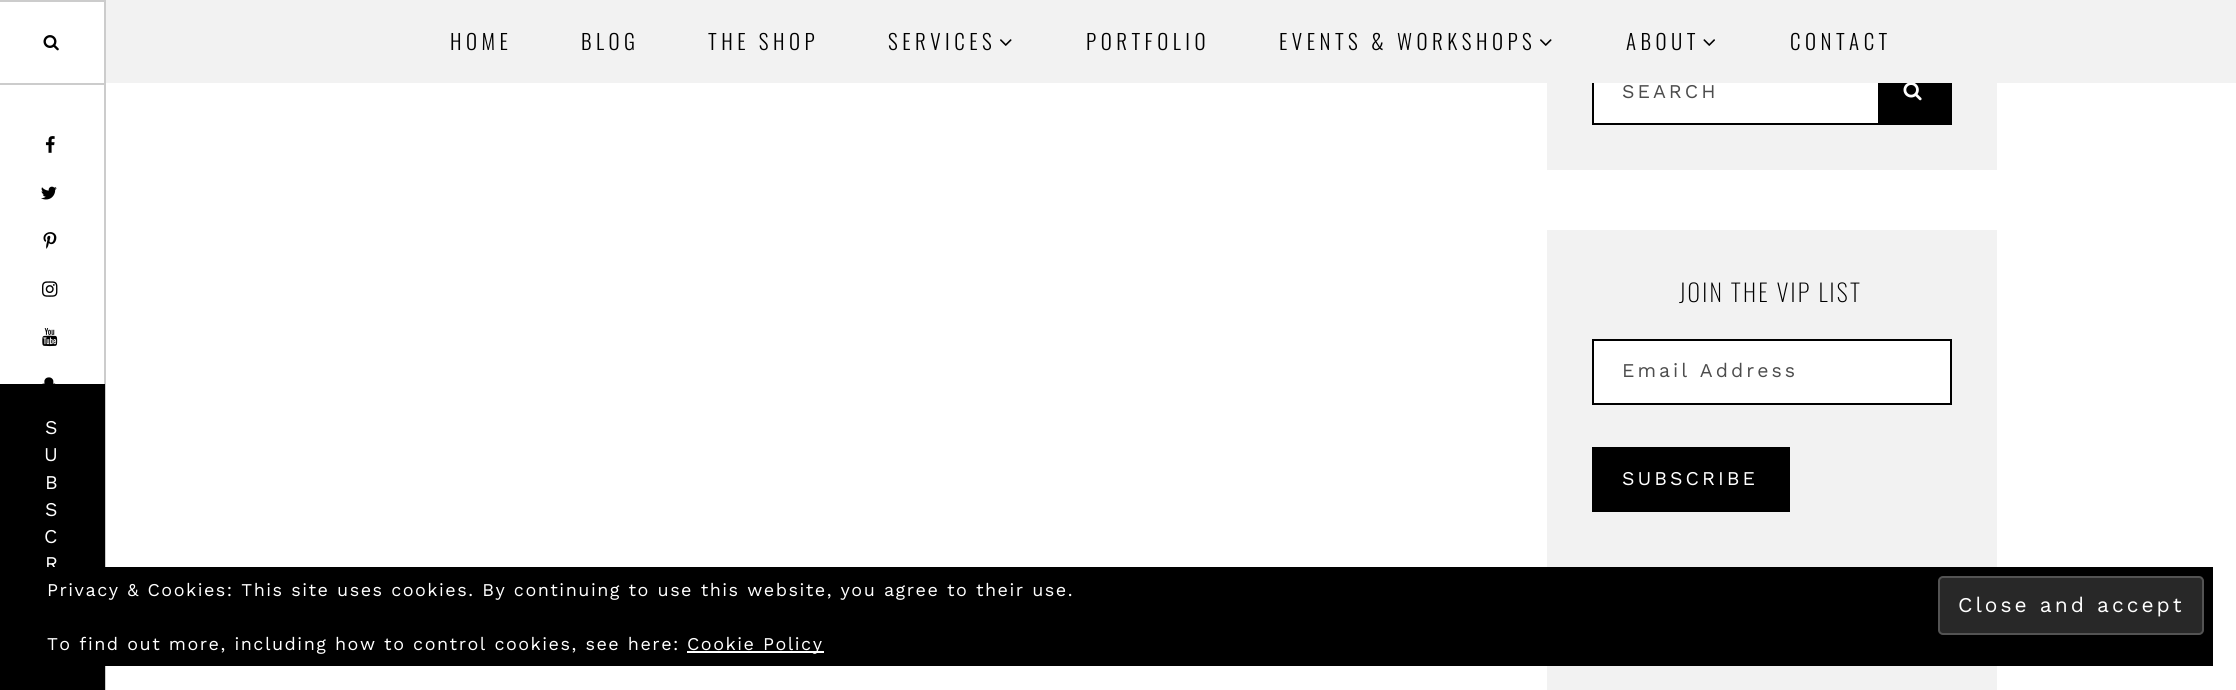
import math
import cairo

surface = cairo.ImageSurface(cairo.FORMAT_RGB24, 2236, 690)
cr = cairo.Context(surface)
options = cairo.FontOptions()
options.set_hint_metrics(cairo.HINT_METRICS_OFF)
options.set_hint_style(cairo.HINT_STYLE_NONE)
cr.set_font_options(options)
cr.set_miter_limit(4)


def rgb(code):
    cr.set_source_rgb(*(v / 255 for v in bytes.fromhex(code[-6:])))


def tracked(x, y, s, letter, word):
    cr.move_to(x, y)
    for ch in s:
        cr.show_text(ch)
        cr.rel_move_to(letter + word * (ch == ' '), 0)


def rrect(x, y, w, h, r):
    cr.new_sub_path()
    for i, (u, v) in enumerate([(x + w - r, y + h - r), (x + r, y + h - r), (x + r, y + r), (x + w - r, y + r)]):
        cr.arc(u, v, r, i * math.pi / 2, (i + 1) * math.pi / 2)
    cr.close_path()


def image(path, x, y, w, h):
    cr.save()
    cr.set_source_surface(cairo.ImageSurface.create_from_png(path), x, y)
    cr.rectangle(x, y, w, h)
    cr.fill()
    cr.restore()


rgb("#ffffff")
cr.paint()
rgb("#f2f2f2")
cr.rectangle(1547, 83, 450, 87)
cr.fill()
rgb("#ffffff")
cr.rectangle(1594, 83, 284, 40)
cr.fill()
cr.rectangle(1593, 61, 286, 63)
rgb("#000000")
cr.stroke()
rgb("#f2f2f2")
cr.rectangle(106, 0, 2130, 83)
cr.fill()
image("img/1.png", 1000, 39, 12, 7)
image("img/1.png", 1540, 39, 12, 7)
image("img/2.png", 1703, 39, 12, 7)
for x, y, w, h, color in [
    (104, 0, 2, 690, "#cccccc"),
    (0, 0, 104, 2, "#cccccc"),
    (0, 83, 104, 2, "#cccccc"),
]:
    rgb(color)
    cr.rectangle(x, y, w, h)
    cr.fill()
image("img/3.png", 43, 35, 16, 16)
image("img/4.png", 45, 136, 10, 17)
image("img/5.png", 41, 186, 16, 14)
image("img/6.png", 43, 232, 14, 17)
image("img/7.png", 42, 281, 16, 16)
image("img/8.png", 42, 328, 16, 19)
image("img/9.png", 42, 377, 14, 7)
rgb("#000000")
cr.rectangle(0, 384, 105, 306)
cr.fill()
cr.rectangle(1880, 83, 72, 42)
cr.fill()
image("img/10.png", 1903, 83, 19, 18)
rgb("#f2f2f2")
cr.rectangle(1547, 230, 450, 337)
cr.fill()
rgb("#ffffff")
cr.rectangle(1593, 340, 358, 64)
cr.fill_preserve()
rgb("#000000")
cr.stroke()
cr.rectangle(1592, 447, 198, 65)
cr.fill()
rgb("#f2f2f2")
cr.rectangle(1547, 666, 450, 24)
cr.fill()
cr.select_font_face("Oswald Light")
cr.set_font_size(21)
rgb("#000000")
for x, y, s in [
    (450, 50, "HOME"),
    (581, 50, "BLOG"),
    (708, 50, "THE SHOP"),
    (888, 50, "SERVICES"),
    (1086, 50, "PORTFOLIO"),
    (1279, 50, "EVENTS & WORKSHOPS"),
    (1626, 50, "ABOUT"),
    (1790, 50, "CONTACT"),
]:
    tracked(x, y, s, 4.5, 0)
cr.select_font_face("Work Sans")
cr.set_font_size(19.5)
rgb("#ffffff")
for x, y, s in [
    (45, 434, "S"),
    (44, 461, "U"),
    (45, 489, "B"),
    (45, 516, "S"),
    (44, 543, "C"),
    (45, 570, "R"),
]:
    tracked(x, y, s, 3, 0)
rgb("#4d4d4d")
tracked(1622, 98, "SEARCH", 3, 0)
cr.select_font_face("Oswald ExtraLight")
cr.set_font_size(24)
rgb("#000000")
tracked(1679, 302, "JOIN THE VIP LIST", 2.25, 0)
cr.select_font_face("Work Sans")
cr.set_font_size(19.5)
rgb("#4d4d4d")
tracked(1622, 377, "Email Address", 3, 0)
rgb("#ffffff")
tracked(1622, 485, "SUBSCRIBE", 3, 0)
rgb("#000000")
cr.rectangle(46, 567, 2167, 99)
cr.fill()
cr.set_font_size(18)
rgb("#ffffff")
tracked(47, 596, "Privacy & Cookies: This site uses cookies. By continuing to use this website, you agree to their use.", 1.5, 0)
rgb("#282828")
rrect(1939, 577, 264, 57, 4)
cr.fill_preserve()
rgb("#535353")
cr.stroke()
cr.set_font_size(21)
rgb("#ffffff")
tracked(1958, 612, "Close and accept", 3, 0)
cr.set_font_size(18)
tracked(47, 650, "To find out more, including how to control cookies, see here:", 1.5, 0)
cr.rectangle(687, 651, 137, 2)
cr.fill()
tracked(687, 650, "Cookie Policy", 1.5, 0)
surface.write_to_png("page.png")
